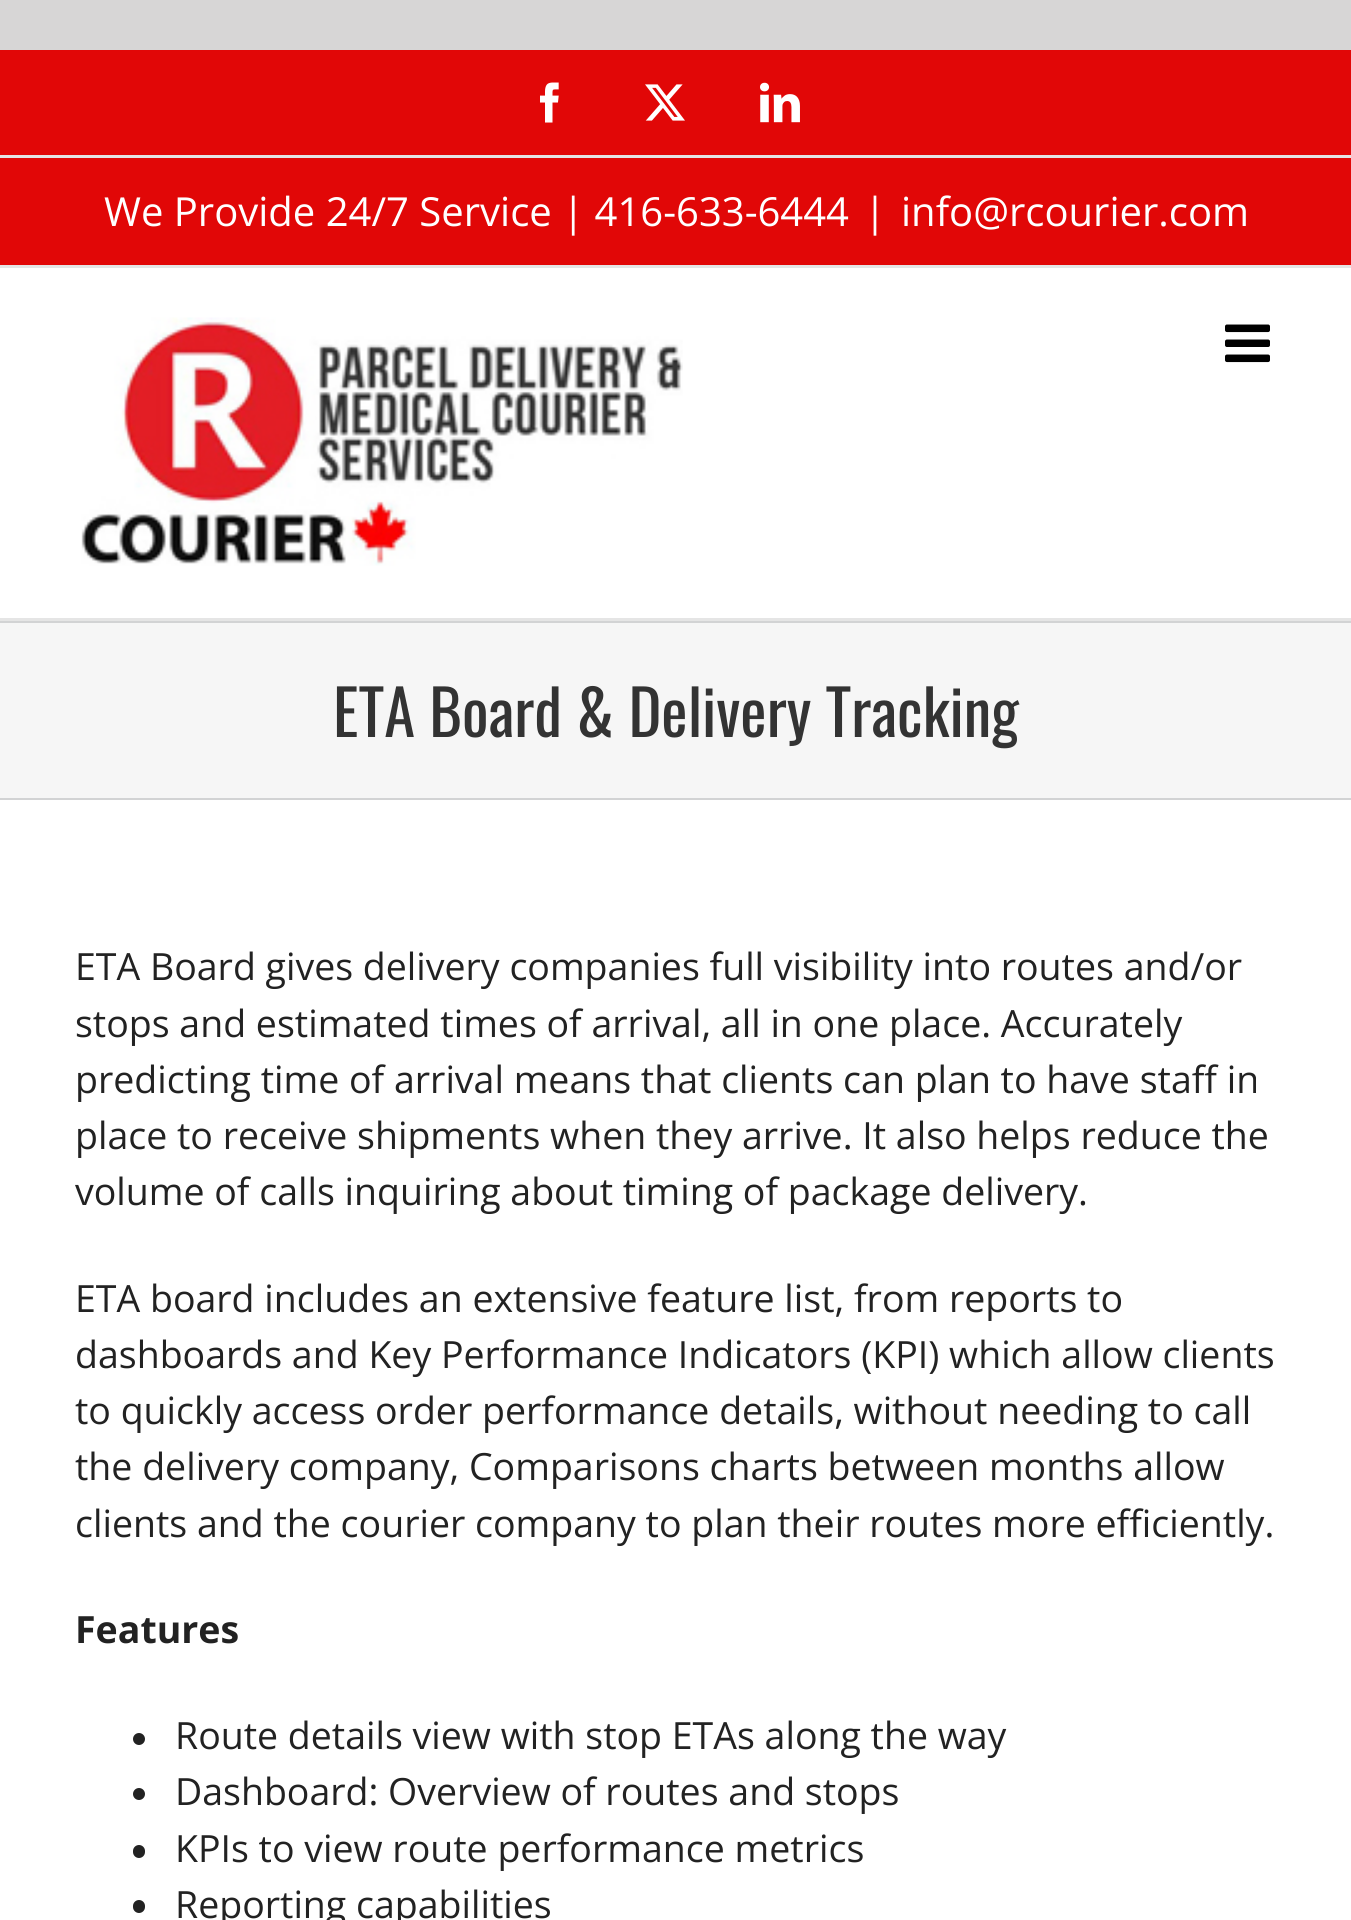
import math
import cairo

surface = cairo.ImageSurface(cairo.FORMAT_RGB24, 1351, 1920)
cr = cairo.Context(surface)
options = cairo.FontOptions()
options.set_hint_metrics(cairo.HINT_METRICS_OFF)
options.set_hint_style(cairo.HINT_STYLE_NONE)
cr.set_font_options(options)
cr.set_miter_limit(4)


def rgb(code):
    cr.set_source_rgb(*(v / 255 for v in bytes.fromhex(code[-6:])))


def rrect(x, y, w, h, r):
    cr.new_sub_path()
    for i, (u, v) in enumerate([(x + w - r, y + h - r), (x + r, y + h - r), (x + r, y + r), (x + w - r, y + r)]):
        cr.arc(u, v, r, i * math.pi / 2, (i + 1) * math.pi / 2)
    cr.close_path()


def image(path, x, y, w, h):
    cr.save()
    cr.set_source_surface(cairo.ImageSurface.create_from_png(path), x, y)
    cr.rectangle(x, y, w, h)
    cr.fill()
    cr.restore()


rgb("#d7d6d6")
cr.paint()
for x, y, w, h, color in [
    (0, 50, 1351, 215, "#e10707"),
    (0, 265, 1351, 3, "#e5e5e5"),
    (0, 155, 1351, 3, "#e5e5e5"),
]:
    rgb(color)
    cr.rectangle(x, y, w, h)
    cr.fill()
image("img/1.png", 540, 82, 19, 41)
image("img/2.png", 645, 84, 40, 37)
image("img/3.png", 760, 82, 40, 41)
rgb("#ffffff")
cr.rectangle(0, 268, 1351, 350)
cr.fill()
rgb("#e5e5e5")
cr.rectangle(0, 618, 1351, 3)
cr.fill()
image("img/4.png", 81, 317, 602, 249)
image("img/5.png", 1225, 324, 45, 39)
for x, y, w, h, color in [
    (0, 623, 1351, 175, "#f6f6f6"),
    (0, 621, 1351, 2, "#d2d3d4"),
    (0, 798, 1351, 2, "#d2d3d4"),
    (0, 800, 1351, 1120, "#ffffff"),
]:
    rgb(color)
    cr.rectangle(x, y, w, h)
    cr.fill()
rgb("#222222")
cr.arc(139, 1739, 6, 0, 2 * math.pi)
cr.fill()
cr.arc(139, 1794, 6, 0, 2 * math.pi)
cr.fill()
rrect(133, 1845, 12, 13, 6)
cr.fill()
rrect(133, 1900, 12, 13, 6)
cr.fill()
cr.select_font_face("Open Sans")
cr.set_font_size(40)
rgb("#ffffff")
for x, y, s in [
    (104, 226, "We Provide 24/7 Service | 416-633-6444"),
    (864, 226, "|"),
    (901, 226, "info@rcourier.com"),
]:
    cr.move_to(x, y)
    cr.show_text(s)
cr.select_font_face("Oswald")
cr.set_font_size(62.5)
rgb("#333333")
cr.move_to(333, 737)
cr.show_text("ETA Board & Delivery Tracking")
cr.select_font_face("Open Sans")
cr.set_font_size(37.5)
rgb("#222222")
for x, y, s in [
    (75, 980, "ETA Board gives delivery companies full visibility into routes and/or"),
    (75, 1037, "stops and estimated times of arrival, all in one place. Accurately"),
    (75, 1093, "predicting time of arrival means that clients can plan to have staff in"),
    (75, 1149, "place to receive shipments when they arrive. It also helps reduce the"),
    (75, 1205, "volume of calls inquiring about timing of package delivery."),
    (75, 1312, "ETA board includes an extensive feature list, from reports to"),
    (75, 1368, "dashboards and Key Performance Indicators (KPI) which allow clients"),
    (75, 1424, "to quickly access order performance details, without needing to call"),
    (75, 1480, "the delivery company, Comparisons charts between months allow"),
    (75, 1537, "clients and the courier company to plan their routes more efficiently."),
]:
    cr.move_to(x, y)
    cr.show_text(s)
cr.select_font_face("Open Sans", cairo.FONT_SLANT_NORMAL, cairo.FONT_WEIGHT_BOLD)
cr.move_to(75, 1643)
cr.show_text("Features")
cr.select_font_face("Open Sans")
for x, y, s in [
    (175, 1749, "Route details view with stop ETAs along the way"),
    (175, 1805, "Dashboard: Overview of routes and stops"),
    (175, 1862, "KPIs to view route performance metrics"),
    (175, 1918, "Reporting capabilities"),
]:
    cr.move_to(x, y)
    cr.show_text(s)
surface.write_to_png("page.png")
